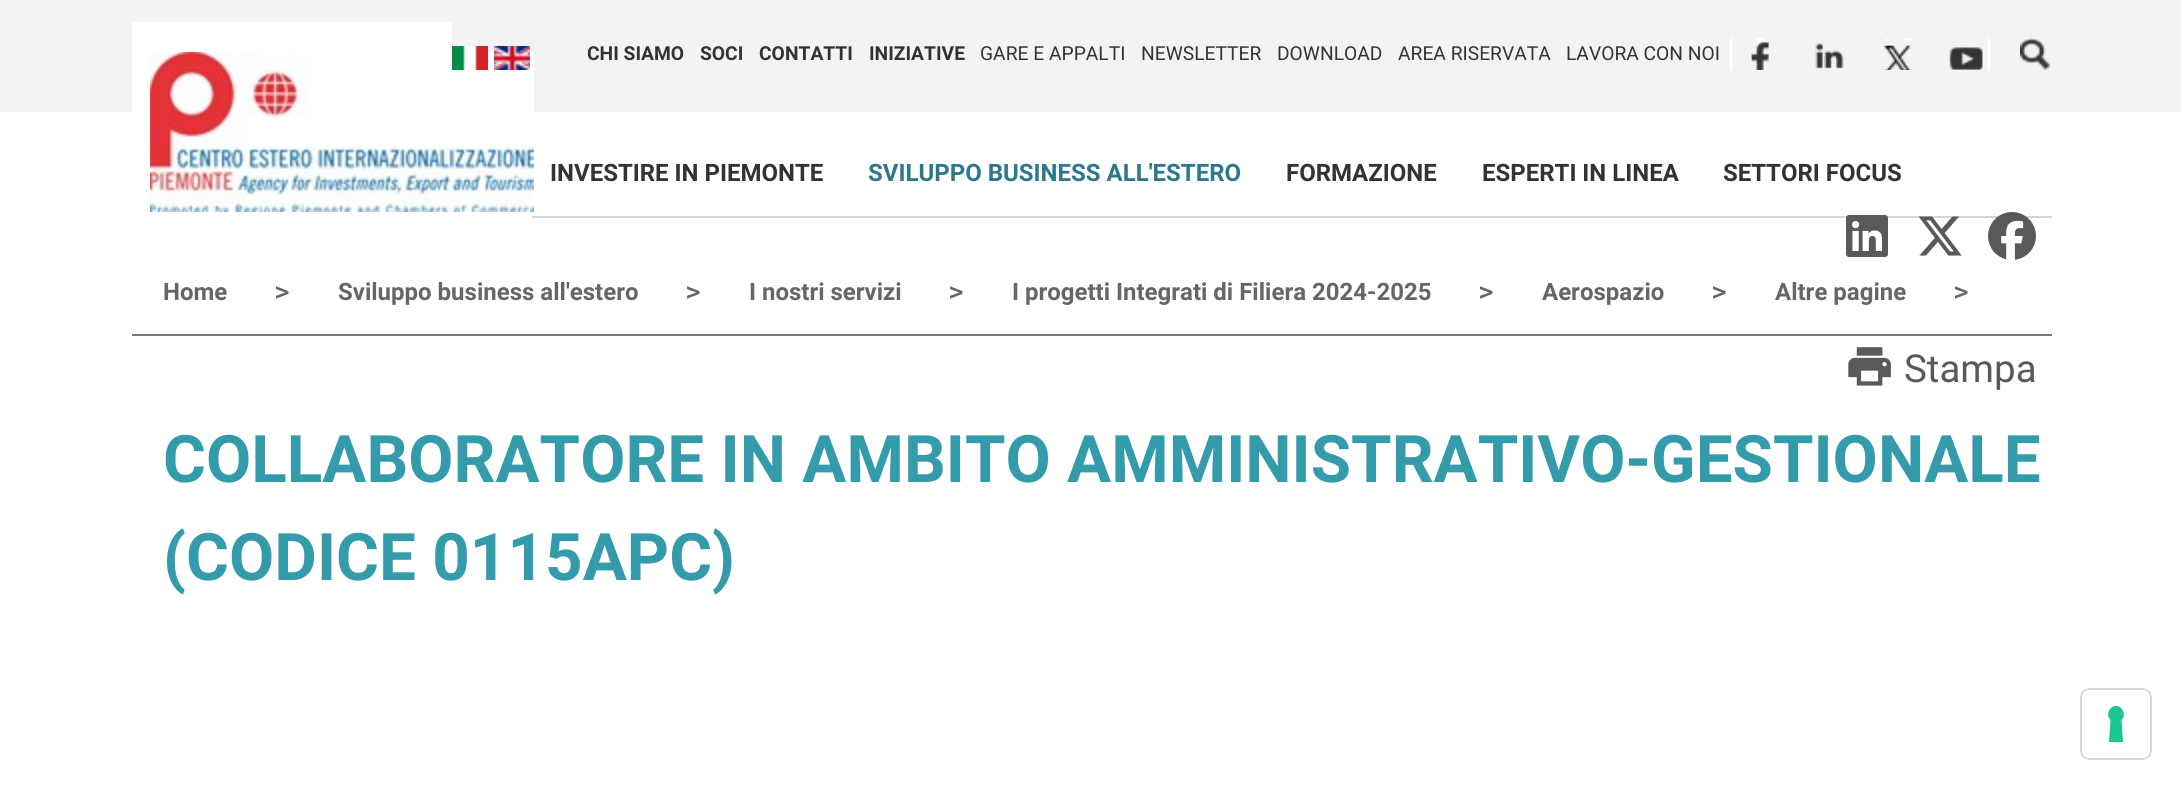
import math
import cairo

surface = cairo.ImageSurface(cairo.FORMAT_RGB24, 2181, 789)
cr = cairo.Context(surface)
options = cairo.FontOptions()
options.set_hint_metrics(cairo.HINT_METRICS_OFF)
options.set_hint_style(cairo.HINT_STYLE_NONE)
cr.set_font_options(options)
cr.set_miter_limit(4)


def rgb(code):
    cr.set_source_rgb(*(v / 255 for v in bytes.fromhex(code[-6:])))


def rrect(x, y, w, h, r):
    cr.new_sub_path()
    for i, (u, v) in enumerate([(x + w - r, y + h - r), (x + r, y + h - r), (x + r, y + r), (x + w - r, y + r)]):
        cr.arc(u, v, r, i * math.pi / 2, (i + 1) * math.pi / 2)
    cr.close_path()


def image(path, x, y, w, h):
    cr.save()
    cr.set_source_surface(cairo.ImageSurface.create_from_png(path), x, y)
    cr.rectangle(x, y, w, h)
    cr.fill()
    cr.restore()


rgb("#ffffff")
cr.paint()
rgb("#f3f3f3")
cr.rectangle(0, 0, 2181, 112)
cr.fill()
rgb("#ffffff")
cr.rectangle(132, 22, 320, 90)
cr.fill()
image("img/8.png", 150, 52, 384, 160)
image("img/1.png", 452, 46, 36, 24)
image("img/2.png", 494, 46, 36, 24)
cr.rectangle(1730, 38, 2, 32)
cr.fill()
image("img/3.png", 1751, 38, 18, 32)
image("img/4.png", 1815, 43, 29, 26)
image("img/5.png", 1884, 38, 28, 32)
image("img/6.png", 1949, 47, 34, 23)
cr.rectangle(1988, 38, 2, 32)
cr.fill()
image("img/7.png", 2020, 38, 30, 32)
rgb("#d6d6d6")
cr.rectangle(532, 216, 1520, 2)
cr.fill()
rgb("#7b7b7b")
cr.rectangle(132, 334, 1920, 2)
cr.fill()
image("img/9.png", 1846, 215, 42, 42)
image("img/10.png", 1918, 216, 44, 40)
image("img/11.png", 1988, 212, 48, 48)
image("img/12.png", 1848, 347, 43, 39)
rrect(2081, 689, 70, 70, 9)
rgb("#d9d9d9")
cr.stroke()
rgb("#ffffff")
rrect(2082, 690, 68, 68, 8)
cr.fill()
rgb("#1cc691")
cr.set_fill_rule(cairo.FILL_RULE_EVEN_ODD)
cr.new_path()
cr.move_to(2116, 706)
cr.curve_to(2123, 706, 2126.5, 715.5, 2121.5, 720)
cr.line_to(2123, 742)
cr.line_to(2109, 742)
cr.line_to(2110.5, 720)
cr.curve_to(2105.5, 715.5, 2109, 706, 2116, 706)
cr.close_path()
cr.fill()
cr.select_font_face("Roboto", cairo.FONT_SLANT_NORMAL, cairo.FONT_WEIGHT_BOLD)
cr.set_font_size(19.25)
rgb("#333333")
for x, y, s in [
    (587, 60, "CHI SIAMO"),
    (700, 60, "SOCI"),
    (759, 60, "CONTATTI"),
    (869, 60, "INIZIATIVE"),
]:
    cr.move_to(x, y)
    cr.show_text(s)
cr.select_font_face("Roboto")
for x, y, s in [
    (980, 60, "GARE E APPALTI"),
    (1141, 60, "NEWSLETTER"),
    (1277, 60, "DOWNLOAD"),
    (1398, 60, "AREA RISERVATA"),
    (1566, 60, "LAVORA CON NOI"),
]:
    cr.move_to(x, y)
    cr.show_text(s)
cr.select_font_face("Roboto", cairo.FONT_SLANT_NORMAL, cairo.FONT_WEIGHT_BOLD)
cr.set_font_size(24)
cr.move_to(550, 181)
cr.show_text("INVESTIRE IN PIEMONTE")
rgb("#2d788d")
cr.move_to(868, 181)
cr.show_text("SVILUPPO BUSINESS ALL'ESTERO")
rgb("#333333")
for x, y, s in [
    (1286, 181, "FORMAZIONE"),
    (1482, 181, "ESPERTI IN LINEA"),
    (1723, 181, "SETTORI FOCUS"),
]:
    cr.move_to(x, y)
    cr.show_text(s)
rgb("#666666")
cr.move_to(163, 300)
cr.show_text("Home")
cr.select_font_face("DejaVu Sans Mono", cairo.FONT_SLANT_NORMAL, cairo.FONT_WEIGHT_BOLD)
cr.move_to(275, 300)
cr.show_text(">")
cr.select_font_face("Roboto", cairo.FONT_SLANT_NORMAL, cairo.FONT_WEIGHT_BOLD)
cr.move_to(338, 300)
cr.show_text("Sviluppo business all'estero")
cr.select_font_face("DejaVu Sans Mono", cairo.FONT_SLANT_NORMAL, cairo.FONT_WEIGHT_BOLD)
cr.move_to(686, 300)
cr.show_text(">")
cr.select_font_face("Roboto", cairo.FONT_SLANT_NORMAL, cairo.FONT_WEIGHT_BOLD)
cr.move_to(749, 300)
cr.show_text("I nostri servizi")
cr.select_font_face("DejaVu Sans Mono", cairo.FONT_SLANT_NORMAL, cairo.FONT_WEIGHT_BOLD)
cr.move_to(949, 300)
cr.show_text(">")
cr.select_font_face("Roboto", cairo.FONT_SLANT_NORMAL, cairo.FONT_WEIGHT_BOLD)
cr.move_to(1012, 300)
cr.show_text("I progetti Integrati di Filiera 2024-2025")
cr.select_font_face("DejaVu Sans Mono", cairo.FONT_SLANT_NORMAL, cairo.FONT_WEIGHT_BOLD)
cr.move_to(1479, 300)
cr.show_text(">")
cr.select_font_face("Roboto", cairo.FONT_SLANT_NORMAL, cairo.FONT_WEIGHT_BOLD)
cr.move_to(1542, 300)
cr.show_text("Aerospazio")
cr.select_font_face("DejaVu Sans Mono", cairo.FONT_SLANT_NORMAL, cairo.FONT_WEIGHT_BOLD)
cr.move_to(1712, 300)
cr.show_text(">")
cr.select_font_face("Roboto", cairo.FONT_SLANT_NORMAL, cairo.FONT_WEIGHT_BOLD)
cr.move_to(1775, 300)
cr.show_text("Altre pagine")
cr.select_font_face("DejaVu Sans Mono", cairo.FONT_SLANT_NORMAL, cairo.FONT_WEIGHT_BOLD)
cr.move_to(1954, 300)
cr.show_text(">")
cr.select_font_face("Roboto")
cr.set_font_size(38.5)
rgb("#595959")
cr.move_to(1904, 382)
cr.show_text("Stampa")
cr.select_font_face("Roboto", cairo.FONT_SLANT_NORMAL, cairo.FONT_WEIGHT_BOLD)
cr.set_font_size(65.6)
rgb("#349bab")
cr.move_to(163, 482)
cr.show_text("COLLABORATORE IN AMBITO AMMINISTRATIVO-GESTIONALE")
cr.move_to(163, 580)
cr.show_text("(CODICE 0115APC)")
surface.write_to_png("page.png")
